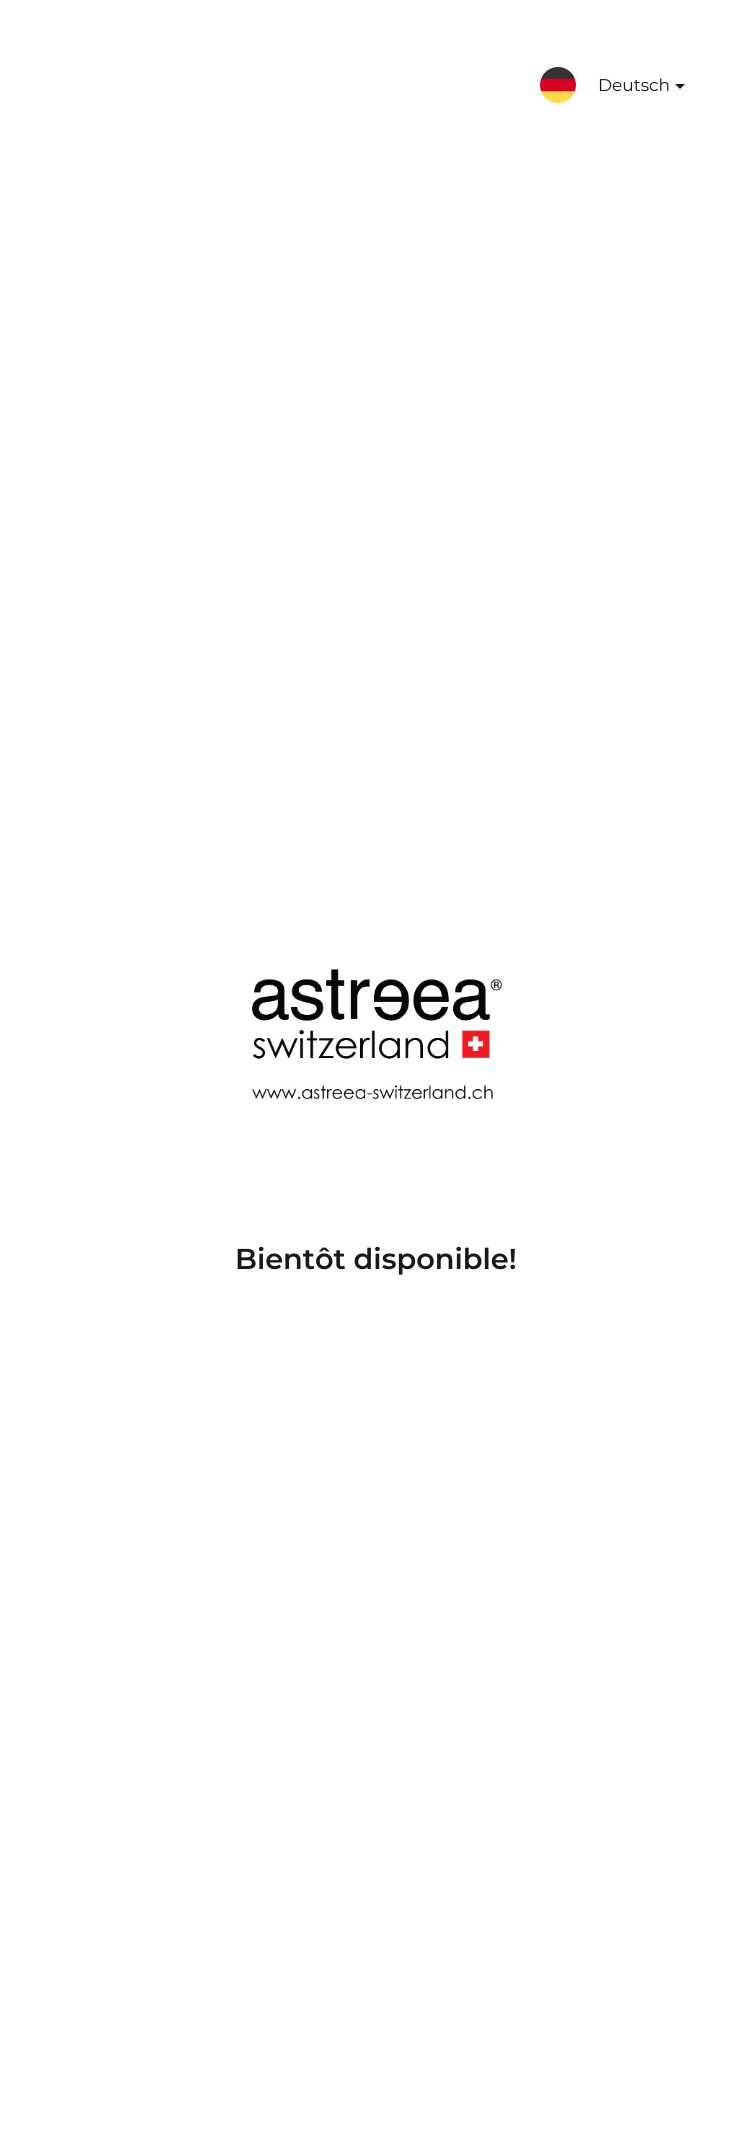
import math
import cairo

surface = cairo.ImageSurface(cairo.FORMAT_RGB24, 752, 2155)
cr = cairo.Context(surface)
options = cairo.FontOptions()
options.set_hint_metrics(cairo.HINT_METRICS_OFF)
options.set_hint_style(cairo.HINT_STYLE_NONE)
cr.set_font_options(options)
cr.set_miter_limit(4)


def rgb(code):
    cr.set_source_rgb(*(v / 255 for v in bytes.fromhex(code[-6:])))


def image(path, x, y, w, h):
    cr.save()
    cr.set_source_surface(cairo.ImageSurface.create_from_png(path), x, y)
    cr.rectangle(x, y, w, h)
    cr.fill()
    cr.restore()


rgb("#ffffff")
cr.paint()
image("img/1.png", 540, 67, 36, 36)
rgb("#191919")
cr.new_path()
cr.move_to(675, 84)
cr.line_to(685, 84)
cr.line_to(680, 89)
cr.close_path()
cr.fill()
image("img/2.png", 252, 969, 251, 131)
cr.select_font_face("Montserrat")
cr.set_font_size(17)
cr.move_to(598, 91)
cr.show_text("Deutsch")
cr.select_font_face("Montserrat SemiBold")
cr.set_font_size(28.75)
cr.move_to(235, 1269)
cr.show_text("Bientôt disponible!")
surface.write_to_png("page.png")
